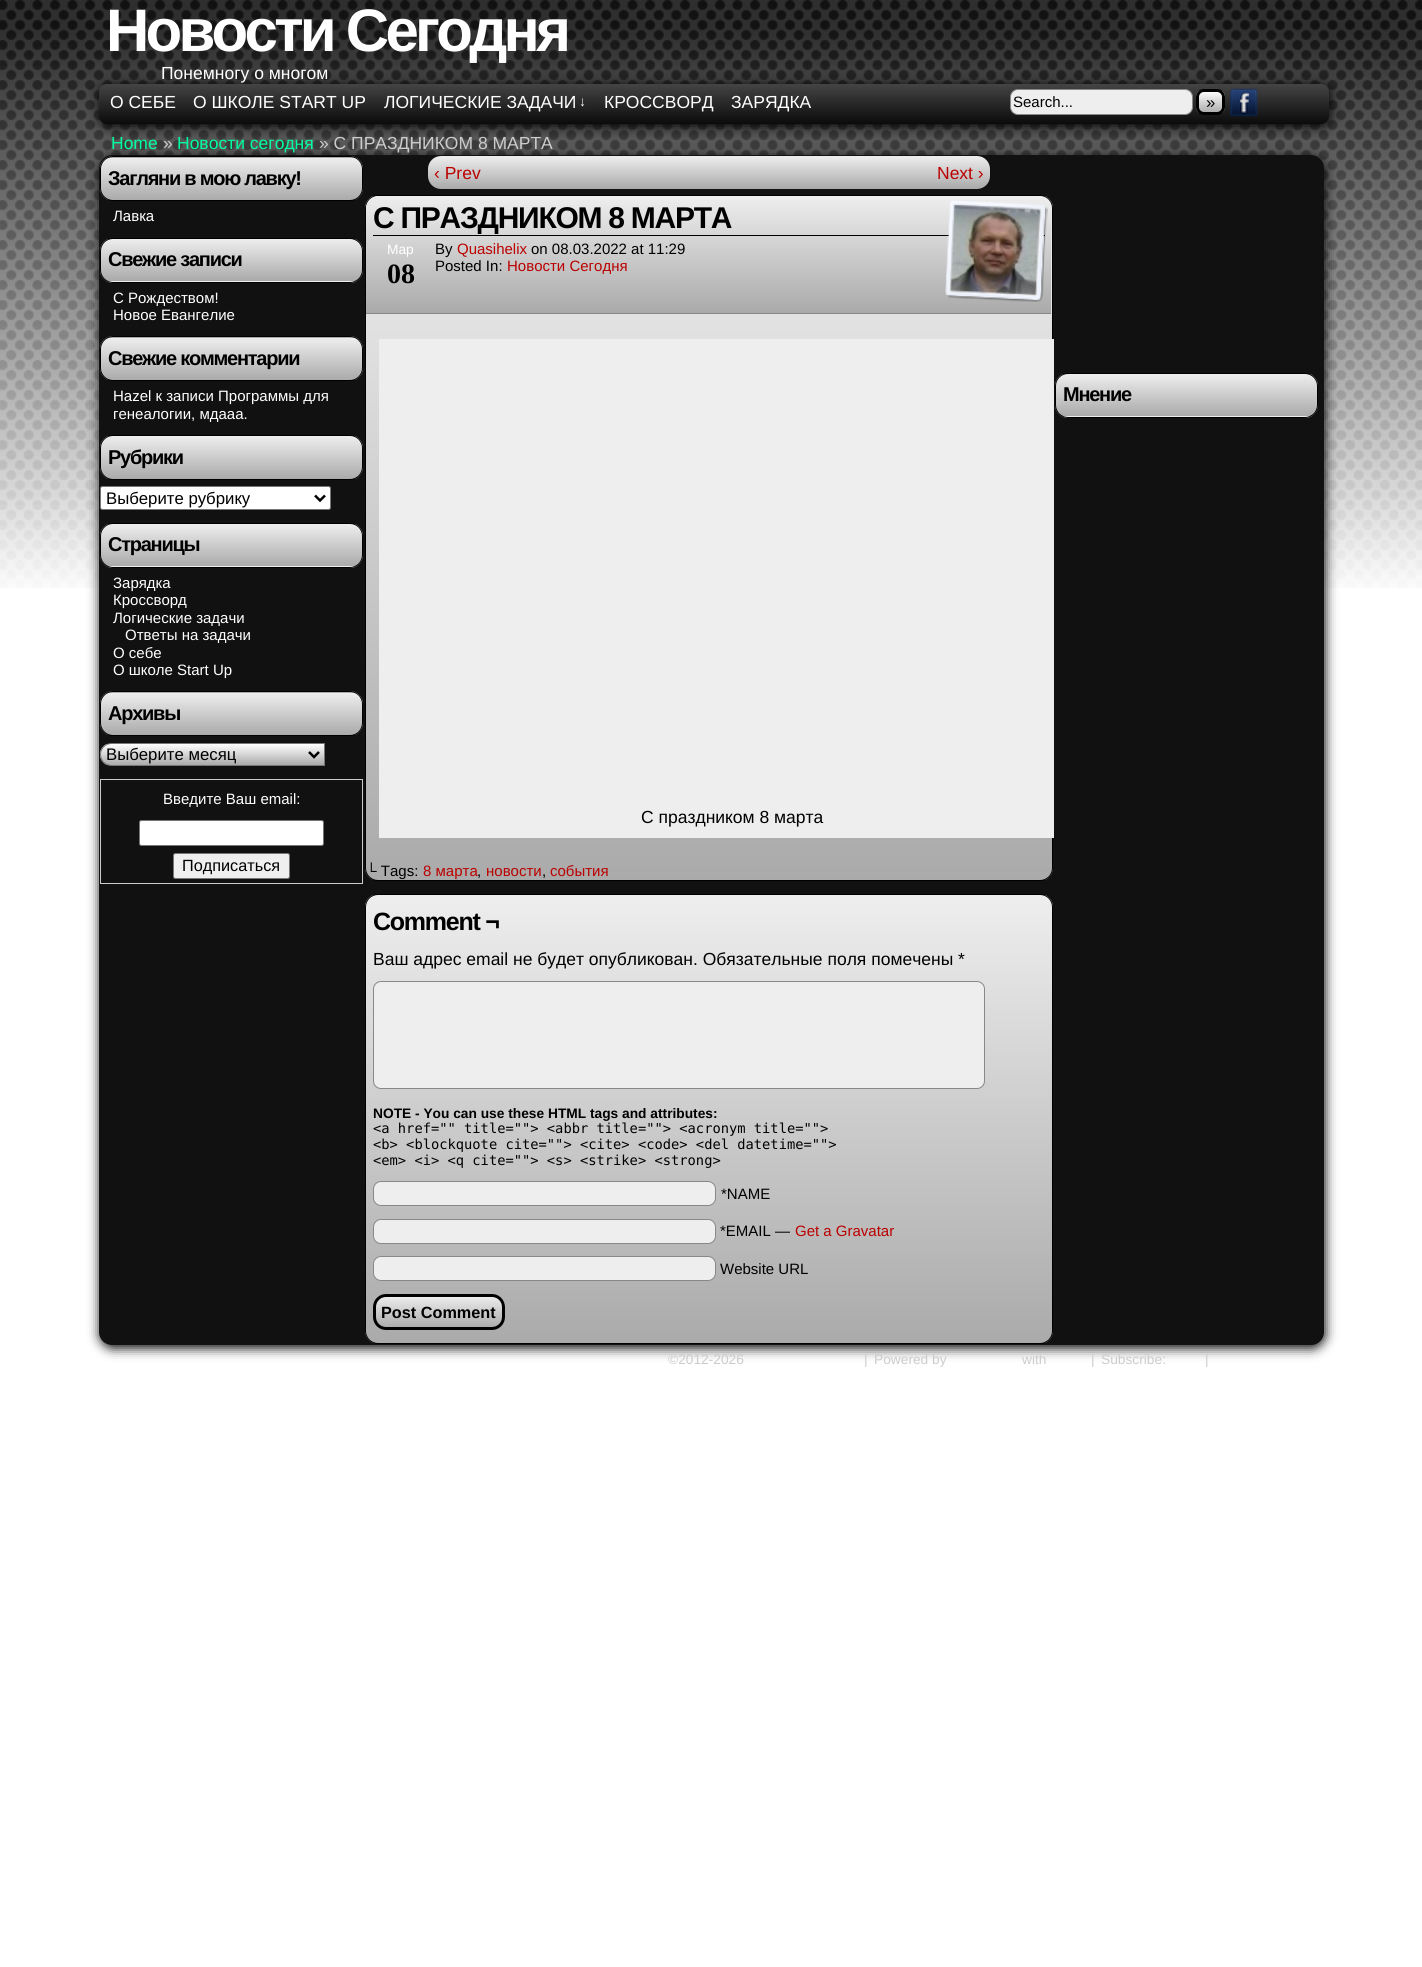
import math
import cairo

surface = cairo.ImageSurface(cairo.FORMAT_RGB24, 1422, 1967)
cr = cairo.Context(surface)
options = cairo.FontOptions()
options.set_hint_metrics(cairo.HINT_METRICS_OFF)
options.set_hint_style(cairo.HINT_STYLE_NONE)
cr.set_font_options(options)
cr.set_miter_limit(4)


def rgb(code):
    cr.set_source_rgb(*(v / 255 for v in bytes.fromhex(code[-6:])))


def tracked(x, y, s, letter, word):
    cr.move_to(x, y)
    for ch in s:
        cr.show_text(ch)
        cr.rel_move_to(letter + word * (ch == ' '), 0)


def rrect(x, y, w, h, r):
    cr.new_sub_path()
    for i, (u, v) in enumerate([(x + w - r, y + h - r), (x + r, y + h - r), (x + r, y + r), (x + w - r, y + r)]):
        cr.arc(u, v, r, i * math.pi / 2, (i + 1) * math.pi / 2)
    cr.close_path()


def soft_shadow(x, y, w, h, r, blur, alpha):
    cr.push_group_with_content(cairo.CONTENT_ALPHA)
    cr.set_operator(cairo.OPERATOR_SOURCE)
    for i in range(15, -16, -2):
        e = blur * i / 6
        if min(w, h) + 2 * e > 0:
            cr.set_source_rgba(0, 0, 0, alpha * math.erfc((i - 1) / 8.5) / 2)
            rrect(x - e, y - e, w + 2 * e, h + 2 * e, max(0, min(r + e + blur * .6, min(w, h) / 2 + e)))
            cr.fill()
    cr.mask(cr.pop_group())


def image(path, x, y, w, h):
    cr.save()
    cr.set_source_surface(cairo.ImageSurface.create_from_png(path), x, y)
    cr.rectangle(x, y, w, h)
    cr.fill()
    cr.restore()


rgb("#ffffff")
cr.paint()
image("img/1.png", 0, 0, 1422, 588)
rgb("#000000")
soft_shadow(100, 86, 1230, 40, 8, 6, 1)
gradient = cairo.LinearGradient(99, 84, 99, 124)
gradient.add_color_stop_rgba(0, 0.267, 0.267, 0.267, 1)
gradient.add_color_stop_rgba(1, 0.043, 0.043, 0.043, 1)
cr.set_source(gradient)
rrect(99, 84, 1230, 40, 8)
cr.fill()
rgb("#eeeeee")
rrect(1010.5, 89.5, 182, 25, 7.5)
cr.fill_preserve()
rgb("#888888")
cr.set_line_width(1)
cr.stroke()
cr.save()
rrect(1196, 89, 29, 26, 8)
cr.clip()
gradient = cairo.LinearGradient(1199, 91, 1199, 113)
gradient.add_color_stop_rgba(0, 1, 1, 1, 1)
gradient.add_color_stop_rgba(1, 0.667, 0.667, 0.667, 1)
cr.set_source(gradient)
cr.rectangle(1196, 91, 29, 22)
cr.fill()
cr.restore()
rrect(1197.5, 90.5, 26, 23, 6.5)
rgb("#000000")
cr.set_line_width(3)
cr.stroke()
image("img/2.png", 1230, 88, 28, 29)
rgb("#000000")
soft_shadow(100, 158, 1225, 1190, 13, 6, 1)
rgb("#111111")
rrect(99, 155, 1225, 1190, 13)
cr.fill()
cr.save()
rrect(100, 156, 263, 45, 13)
cr.clip()
gradient = cairo.LinearGradient(101, 115, 101, 158)
gradient.add_color_stop_rgba(0, 0.933, 0.933, 0.933, 1)
gradient.add_color_stop_rgba(1, 0.667, 0.667, 0.667, 1)
cr.set_source(gradient)
cr.rectangle(100, 156, 263, 2)
cr.fill()
gradient = cairo.LinearGradient(101, 158, 101, 200)
gradient.add_color_stop_rgba(0, 0.933, 0.933, 0.933, 1)
gradient.add_color_stop_rgba(1, 0.667, 0.667, 0.667, 1)
cr.set_source(gradient)
cr.rectangle(100, 158, 263, 42)
cr.fill()
cr.restore()
rrect(100.5, 156.5, 262, 44, 12.5)
rgb("#000000")
cr.set_line_width(1)
cr.stroke()
cr.save()
rrect(100, 238, 263, 45, 13)
cr.clip()
gradient = cairo.LinearGradient(101, 239, 101, 281)
gradient.add_color_stop_rgba(0, 0.933, 0.933, 0.933, 1)
gradient.add_color_stop_rgba(1, 0.667, 0.667, 0.667, 1)
cr.set_source(gradient)
cr.rectangle(100, 239, 263, 42)
cr.fill()
gradient = cairo.LinearGradient(101, 281, 101, 324)
gradient.add_color_stop_rgba(0, 0.933, 0.933, 0.933, 1)
gradient.add_color_stop_rgba(1, 0.667, 0.667, 0.667, 1)
cr.set_source(gradient)
cr.rectangle(100, 281, 263, 2)
cr.fill()
cr.restore()
rrect(100.5, 238.5, 262, 44, 12.5)
cr.stroke()
cr.save()
rrect(100, 336, 263, 45, 13)
cr.clip()
gradient = cairo.LinearGradient(101, 295, 101, 338)
gradient.add_color_stop_rgba(0, 0.933, 0.933, 0.933, 1)
gradient.add_color_stop_rgba(1, 0.667, 0.667, 0.667, 1)
cr.set_source(gradient)
cr.rectangle(100, 336, 263, 2)
cr.fill()
gradient = cairo.LinearGradient(101, 338, 101, 380)
gradient.add_color_stop_rgba(0, 0.933, 0.933, 0.933, 1)
gradient.add_color_stop_rgba(1, 0.667, 0.667, 0.667, 1)
cr.set_source(gradient)
cr.rectangle(100, 338, 263, 42)
cr.fill()
cr.restore()
rrect(100.5, 336.5, 262, 44, 12.5)
cr.stroke()
cr.save()
rrect(100, 435, 263, 45, 13)
cr.clip()
gradient = cairo.LinearGradient(101, 436, 101, 479)
gradient.add_color_stop_rgba(0, 0.933, 0.933, 0.933, 1)
gradient.add_color_stop_rgba(1, 0.667, 0.667, 0.667, 1)
cr.set_source(gradient)
cr.rectangle(100, 436, 263, 43)
cr.fill()
cr.restore()
rrect(100.5, 435.5, 262, 44, 12.5)
cr.stroke()
rgb("#ffffff")
rrect(100.5, 486.5, 230, 23, 2)
cr.fill_preserve()
rgb("#767676")
cr.stroke()
cr.new_path()
cr.move_to(315, 495.5)
cr.line_to(320, 500.5)
cr.line_to(325, 495.5)
rgb("#000000")
cr.set_line_width(2.5)
cr.stroke()
cr.save()
rrect(100, 523, 263, 45, 13)
cr.clip()
gradient = cairo.LinearGradient(101, 524, 101, 566)
gradient.add_color_stop_rgba(0, 0.933, 0.933, 0.933, 1)
gradient.add_color_stop_rgba(1, 0.667, 0.667, 0.667, 1)
cr.set_source(gradient)
cr.rectangle(100, 524, 263, 42)
cr.fill()
gradient = cairo.LinearGradient(101, 566, 101, 609)
gradient.add_color_stop_rgba(0, 0.933, 0.933, 0.933, 1)
gradient.add_color_stop_rgba(1, 0.667, 0.667, 0.667, 1)
cr.set_source(gradient)
cr.rectangle(100, 566, 263, 2)
cr.fill()
cr.restore()
rrect(100.5, 523.5, 262, 44, 12.5)
cr.set_line_width(1)
cr.stroke()
cr.save()
rrect(100, 691, 263, 45, 13)
cr.clip()
gradient = cairo.LinearGradient(101, 650, 101, 693)
gradient.add_color_stop_rgba(0, 0.933, 0.933, 0.933, 1)
gradient.add_color_stop_rgba(1, 0.667, 0.667, 0.667, 1)
cr.set_source(gradient)
cr.rectangle(100, 691, 263, 2)
cr.fill()
gradient = cairo.LinearGradient(101, 693, 101, 735)
gradient.add_color_stop_rgba(0, 0.933, 0.933, 0.933, 1)
gradient.add_color_stop_rgba(1, 0.667, 0.667, 0.667, 1)
cr.set_source(gradient)
cr.rectangle(100, 693, 263, 42)
cr.fill()
cr.restore()
rrect(100.5, 691.5, 262, 44, 12.5)
cr.stroke()
cr.save()
cr.new_path()
cr.move_to(111.5, 743)
cr.line_to(325, 743)
cr.line_to(325, 766)
cr.line_to(111.5, 766)
cr.curve_to(105, 766, 100, 761, 100, 754.5)
cr.curve_to(100, 748, 105, 743, 111.5, 743)
cr.close_path()
cr.clip()
gradient = cairo.LinearGradient(101, 744, 101, 765)
gradient.add_color_stop_rgba(0, 1, 1, 1, 1)
gradient.add_color_stop_rgba(1, 0.667, 0.667, 0.667, 1)
cr.set_source(gradient)
cr.rectangle(100, 744, 224, 21)
cr.fill()
cr.restore()
cr.new_path()
cr.move_to(111.5, 743.5)
cr.line_to(324.5, 743.5)
cr.line_to(324.5, 765.5)
cr.line_to(111.5, 765.5)
cr.curve_to(105.5, 765.5, 100.5, 760.5, 100.5, 754.5)
cr.curve_to(100.5, 748.5, 105.5, 743.5, 111.5, 743.5)
cr.close_path()
rgb("#767676")
cr.stroke()
cr.new_path()
cr.move_to(309, 752)
cr.line_to(314, 757)
cr.line_to(319, 752)
rgb("#000000")
cr.set_line_width(2.5)
cr.stroke()
cr.rectangle(100.5, 779.5, 262, 104)
rgb("#cccccc")
cr.set_line_width(1)
cr.stroke()
rgb("#ffffff")
rrect(139.5, 820.5, 184, 25, 2)
cr.fill_preserve()
rgb("#767676")
cr.stroke()
rgb("#efefef")
rrect(173.5, 853.5, 116, 25, 2)
cr.fill_preserve()
rgb("#767676")
cr.stroke()
gradient = cairo.LinearGradient(428, 156, 428, 189)
gradient.add_color_stop_rgba(0, 0.933, 0.933, 0.933, 1)
gradient.add_color_stop_rgba(1, 0.667, 0.667, 0.667, 1)
cr.set_source(gradient)
rrect(428, 156, 562, 33, 13)
cr.fill()
cr.save()
rrect(365, 195, 688, 686, 13)
cr.clip()
gradient = cairo.LinearGradient(366, 196, 366, 880)
gradient.add_color_stop_rgba(0, 0.933, 0.933, 0.933, 1)
gradient.add_color_stop_rgba(1, 0.667, 0.667, 0.667, 1)
cr.set_source(gradient)
cr.rectangle(365, 196, 688, 684)
cr.fill()
cr.restore()
rrect(365.5, 195.5, 687, 685, 12.5)
rgb("#000000")
cr.stroke()
gradient = cairo.LinearGradient(366, 196, 366, 313)
gradient.add_color_stop_rgba(0, 0.933, 0.933, 0.933, 1)
gradient.add_color_stop_rgba(1, 0.667, 0.667, 0.667, 1)
cr.set_source(gradient)
cr.new_path()
cr.move_to(379, 196)
cr.line_to(1038, 196)
cr.curve_to(1045, 196, 1051, 202, 1051, 209)
cr.line_to(1051, 313)
cr.line_to(366, 313)
cr.line_to(366, 209)
cr.curve_to(366, 202, 372, 196, 379, 196)
cr.close_path()
cr.fill()
rgb("#888888")
cr.rectangle(366, 313, 685, 1)
cr.fill()
rgb("#000000")
cr.rectangle(373, 235, 672, 1)
cr.fill()
image("img/3.png", 945, 200, 103, 102)
rgb("#eeeeee")
cr.rectangle(379, 339, 675, 499)
cr.fill()
cr.save()
rrect(365, 894, 688, 450, 13)
cr.clip()
gradient = cairo.LinearGradient(366, 895, 366, 1343)
gradient.add_color_stop_rgba(0, 0.933, 0.933, 0.933, 1)
gradient.add_color_stop_rgba(1, 0.667, 0.667, 0.667, 1)
cr.set_source(gradient)
cr.rectangle(365, 895, 688, 448)
cr.fill()
cr.restore()
rrect(365.5, 894.5, 687, 449, 12.5)
rgb("#000000")
cr.stroke()
rgb("#eeeeee")
rrect(373.5, 981.5, 611, 107, 7.5)
cr.fill_preserve()
rgb("#888888")
cr.stroke()
rgb("#eeeeee")
rrect(373.5, 1181.5, 342, 24, 7.5)
cr.fill_preserve()
rgb("#888888")
cr.stroke()
rgb("#eeeeee")
rrect(373.5, 1219.5, 342, 24, 7.5)
cr.fill_preserve()
rgb("#888888")
cr.stroke()
rgb("#eeeeee")
rrect(373.5, 1256.5, 342, 24, 7.5)
cr.fill_preserve()
rgb("#888888")
cr.stroke()
cr.save()
rrect(373, 1294, 132, 36, 13)
cr.clip()
gradient = cairo.LinearGradient(375, 1296, 375, 1328)
gradient.add_color_stop_rgba(0, 0.933, 0.933, 0.933, 1)
gradient.add_color_stop_rgba(1, 0.667, 0.667, 0.667, 1)
cr.set_source(gradient)
cr.rectangle(373, 1296, 132, 32)
cr.fill()
cr.restore()
rrect(374.5, 1295.5, 129, 33, 11.5)
rgb("#000000")
cr.set_line_width(3)
cr.stroke()
cr.save()
rrect(1055, 373, 263, 45, 13)
cr.clip()
gradient = cairo.LinearGradient(1056, 374, 1056, 416)
gradient.add_color_stop_rgba(0, 0.933, 0.933, 0.933, 1)
gradient.add_color_stop_rgba(1, 0.667, 0.667, 0.667, 1)
cr.set_source(gradient)
cr.rectangle(1055, 374, 263, 42)
cr.fill()
gradient = cairo.LinearGradient(1056, 416, 1056, 459)
gradient.add_color_stop_rgba(0, 0.933, 0.933, 0.933, 1)
gradient.add_color_stop_rgba(1, 0.667, 0.667, 0.667, 1)
cr.set_source(gradient)
cr.rectangle(1055, 416, 263, 2)
cr.fill()
cr.restore()
rrect(1055.5, 373.5, 262, 44, 12.5)
cr.set_line_width(1)
cr.stroke()
cr.select_font_face("Liberation Sans", cairo.FONT_SLANT_NORMAL, cairo.FONT_WEIGHT_BOLD)
cr.set_font_size(60)
rgb("#ffffff")
tracked(106, 51, "Новости Сегодня", -3.75, 0)
cr.select_font_face("Liberation Sans")
cr.set_font_size(17.5)
for x, y, s in [
    (161, 79, "Понемногу о многом"),
    (110, 108, "О СЕБЕ"),
    (193, 108, "О ШКОЛЕ START UP"),
    (384, 108, "ЛОГИЧЕСКИЕ ЗАДАЧИ"),
]:
    cr.move_to(x, y)
    cr.show_text(s)
cr.set_font_size(13.75)
cr.move_to(579, 106)
cr.show_text("↓")
cr.set_font_size(17.5)
cr.move_to(604, 108)
cr.show_text("КРОССВОРД")
cr.move_to(731, 108)
cr.show_text("ЗАРЯДКА")
cr.set_font_size(15)
rgb("#000000")
cr.move_to(1013, 107)
cr.show_text("Search...")
cr.set_font_size(16.75)
cr.move_to(1206, 108)
cr.show_text("»")
cr.set_font_size(17.5)
rgb("#00ffa0")
cr.move_to(111, 149)
cr.show_text("Home")
rgb("#cccccc")
cr.move_to(163, 149)
cr.show_text("»")
rgb("#00ffa0")
cr.move_to(177, 149)
cr.show_text("Новости сегодня")
rgb("#cccccc")
cr.move_to(319, 149)
cr.show_text("» С ПРАЗДНИКОМ 8 МАРТА")
cr.select_font_face("Liberation Sans", cairo.FONT_SLANT_NORMAL, cairo.FONT_WEIGHT_BOLD)
cr.set_font_size(20)
rgb("#000000")
tracked(108, 185, "Загляни в мою лавку!", -1.25, 0)
cr.select_font_face("Liberation Sans")
cr.set_font_size(15)
rgb("#ffffff")
cr.move_to(113, 221)
cr.show_text("Лавка")
cr.select_font_face("Liberation Sans", cairo.FONT_SLANT_NORMAL, cairo.FONT_WEIGHT_BOLD)
cr.set_font_size(20)
rgb("#000000")
tracked(108, 266, "Свежие записи", -1.25, 0)
cr.select_font_face("Liberation Sans")
cr.set_font_size(15)
rgb("#ffffff")
cr.move_to(113, 303)
cr.show_text("С Рождеством!")
cr.move_to(113, 320)
cr.show_text("Новое Евангелие")
cr.select_font_face("Liberation Sans", cairo.FONT_SLANT_NORMAL, cairo.FONT_WEIGHT_BOLD)
cr.set_font_size(20)
rgb("#000000")
tracked(108, 365, "Свежие комментарии", -1.25, 0)
cr.select_font_face("Liberation Sans")
cr.set_font_size(15)
rgb("#ffffff")
cr.move_to(113, 401)
cr.show_text("Hazel к записи Программы для")
cr.move_to(113, 419)
cr.show_text("генеалогии, мдааа.")
cr.select_font_face("Liberation Sans", cairo.FONT_SLANT_NORMAL, cairo.FONT_WEIGHT_BOLD)
cr.set_font_size(20)
rgb("#000000")
tracked(108, 464, "Рубрики", -1.25, 0)
cr.select_font_face("Liberation Sans")
cr.set_font_size(16.75)
cr.move_to(106, 504)
cr.show_text("Выберите рубрику")
cr.select_font_face("Liberation Sans", cairo.FONT_SLANT_NORMAL, cairo.FONT_WEIGHT_BOLD)
cr.set_font_size(20)
tracked(108, 551, "Страницы", -1.25, 0)
cr.select_font_face("Liberation Sans")
cr.set_font_size(15)
rgb("#ffffff")
for x, y, s in [
    (113, 588, "Зарядка"),
    (113, 605, "Кроссворд"),
    (113, 623, "Логические задачи"),
    (125, 640, "Ответы на задачи"),
    (113, 658, "О себе"),
    (113, 675, "О школе Start Up"),
]:
    cr.move_to(x, y)
    cr.show_text(s)
cr.select_font_face("Liberation Sans", cairo.FONT_SLANT_NORMAL, cairo.FONT_WEIGHT_BOLD)
cr.set_font_size(20)
rgb("#000000")
tracked(108, 720, "Архивы", -1.25, 0)
cr.select_font_face("Liberation Sans")
cr.set_font_size(16.75)
cr.move_to(106, 760)
cr.show_text("Выберите месяц")
cr.set_font_size(15)
rgb("#ffffff")
cr.move_to(163, 804)
cr.show_text("Введите Ваш email:")
cr.set_font_size(16.25)
rgb("#000000")
cr.move_to(182, 871)
cr.show_text("Подписаться")
cr.set_font_size(17.5)
rgb("#bb0000")
cr.move_to(434, 179)
cr.show_text("‹ Prev")
cr.move_to(937, 179)
cr.show_text("Next ›")
cr.select_font_face("Liberation Sans", cairo.FONT_SLANT_NORMAL, cairo.FONT_WEIGHT_BOLD)
cr.set_font_size(30)
rgb("#000000")
tracked(373, 228, "С ПРАЗДНИКОМ 8 МАРТА", -1.25, 0)
cr.select_font_face("Liberation Sans")
cr.set_font_size(13.75)
rgb("#ffffff")
cr.move_to(387, 254)
cr.show_text("Мар")
cr.select_font_face("Liberation Serif", cairo.FONT_SLANT_NORMAL, cairo.FONT_WEIGHT_BOLD)
cr.set_font_size(28)
rgb("#000000")
cr.move_to(387, 283)
cr.show_text("08")
cr.select_font_face("Liberation Sans")
cr.set_font_size(15)
cr.move_to(435, 254)
cr.show_text("By")
rgb("#bb0000")
cr.move_to(457, 254)
cr.show_text("Quasihelix")
rgb("#000000")
cr.move_to(531, 254)
cr.show_text("on 08.03.2022 at 11:29")
cr.move_to(435, 271)
cr.show_text("Posted In:")
rgb("#bb0000")
cr.move_to(507, 271)
cr.show_text("Новости Сегодня")
cr.set_font_size(17.5)
rgb("#000000")
cr.move_to(641, 823)
cr.show_text("С праздником 8 марта")
cr.set_font_size(15)
cr.move_to(366, 876)
cr.show_text("└ Tags:")
rgb("#bb0000")
cr.move_to(423, 876)
cr.show_text("8 марта")
rgb("#000000")
cr.move_to(477, 876)
cr.show_text(",")
rgb("#bb0000")
cr.move_to(486, 876)
cr.show_text("новости")
rgb("#000000")
cr.move_to(542, 876)
cr.show_text(",")
rgb("#bb0000")
cr.move_to(550, 876)
cr.show_text("события")
cr.select_font_face("Liberation Sans", cairo.FONT_SLANT_NORMAL, cairo.FONT_WEIGHT_BOLD)
cr.set_font_size(25)
rgb("#000000")
tracked(373, 930, "Comment ¬", -1.25, 0)
cr.select_font_face("Liberation Sans")
cr.set_font_size(17.5)
cr.move_to(373, 965)
cr.show_text("Ваш адрес email не будет опубликован. Обязательные поля помечены *")
cr.select_font_face("Liberation Sans", cairo.FONT_SLANT_NORMAL, cairo.FONT_WEIGHT_BOLD)
cr.set_font_size(13.75)
cr.move_to(373, 1118)
cr.show_text("NOTE - You can use these HTML tags and attributes:")
cr.select_font_face("DejaVu Sans Mono")
for x, y, s in [
    (373, 1133, "<a href=\"\" title=\"\"> <abbr title=\"\"> <acronym title=\"\">"),
    (373, 1149, "<b> <blockquote cite=\"\"> <cite> <code> <del datetime=\"\">"),
    (373, 1165, "<em> <i> <q cite=\"\"> <s> <strike> <strong>"),
]:
    cr.move_to(x, y)
    cr.show_text(s)
cr.select_font_face("Liberation Sans")
cr.set_font_size(15)
cr.move_to(721, 1199)
cr.show_text("*NAME")
cr.move_to(720, 1236)
cr.show_text("*EMAIL —")
rgb("#bb0000")
cr.move_to(795, 1236)
cr.show_text("Get a Gravatar")
rgb("#000000")
cr.move_to(720, 1274)
cr.show_text("Website URL")
cr.select_font_face("Liberation Sans", cairo.FONT_SLANT_NORMAL, cairo.FONT_WEIGHT_BOLD)
cr.set_font_size(16.25)
cr.move_to(381, 1318)
cr.show_text("Post Comment")
cr.set_font_size(20)
tracked(1063, 401, "Мнение", -1.25, 0)
cr.select_font_face("Liberation Sans")
cr.set_font_size(13.75)
rgb("#cccccc")
for x, y, s in [
    (668, 1364, "©2012-2026"),
    (864, 1364, "|"),
    (874, 1364, "Powered by"),
    (1022, 1364, "with"),
    (1091, 1364, "|"),
    (1101, 1364, "Subscribe:"),
    (1205, 1364, "|"),
]:
    cr.move_to(x, y)
    cr.show_text(s)
surface.write_to_png("page.png")
